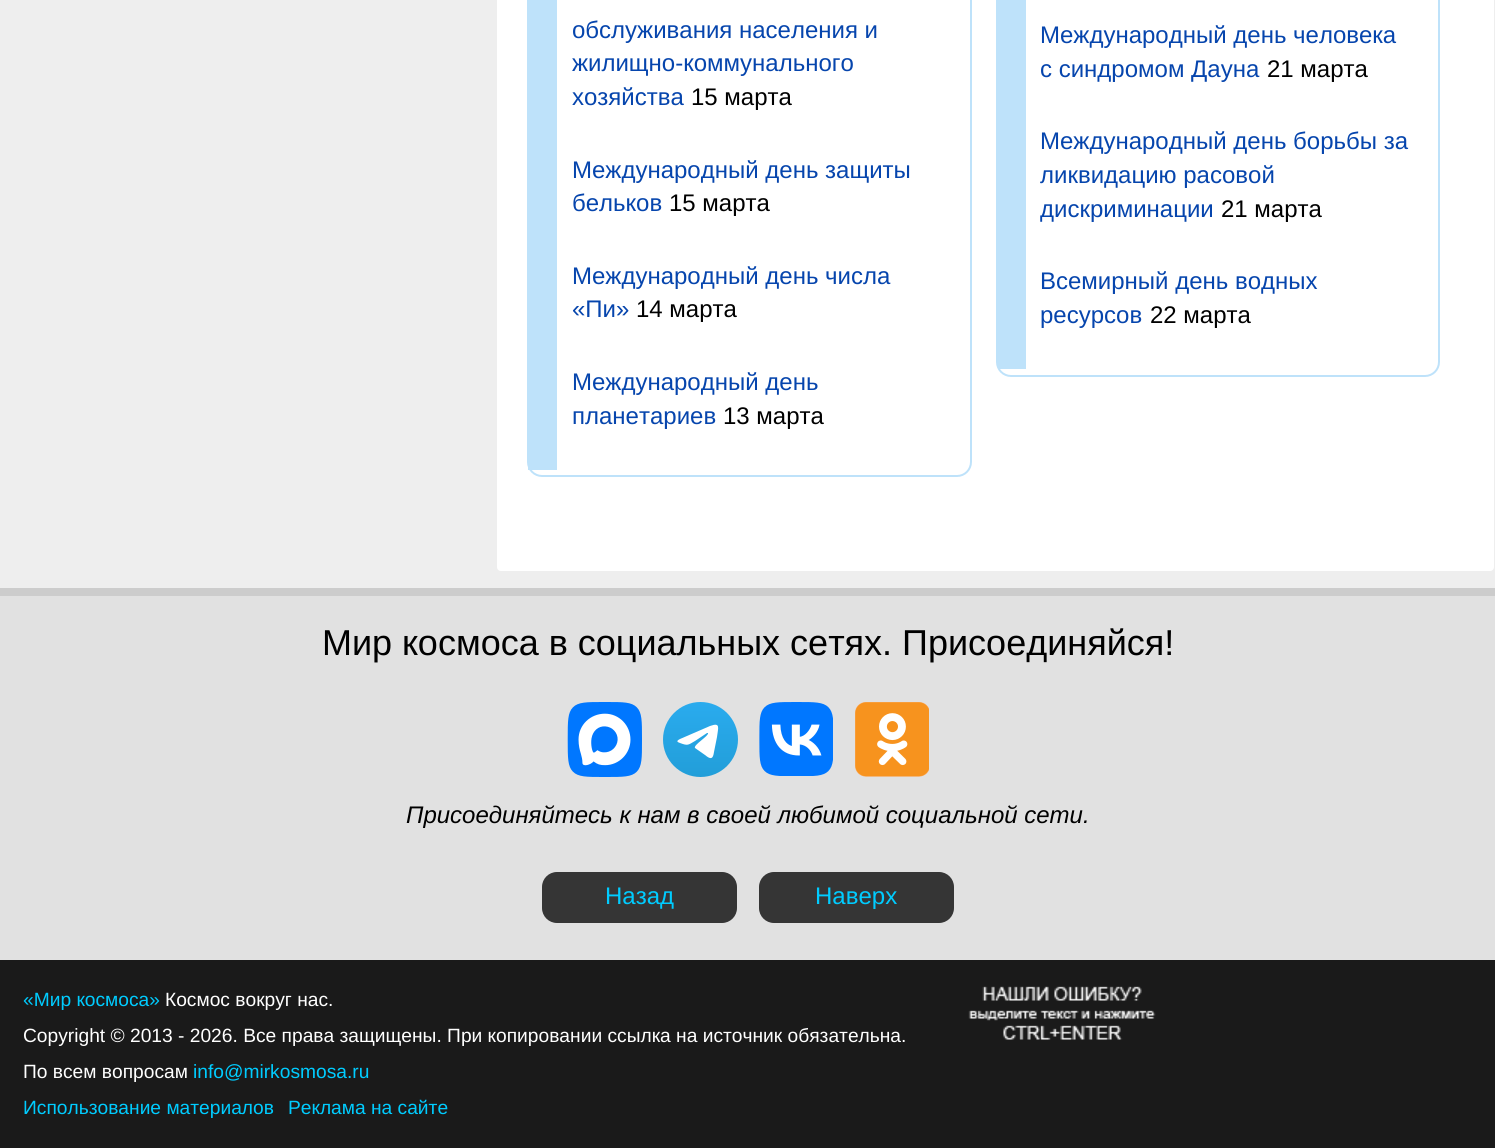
import math
import cairo

surface = cairo.ImageSurface(cairo.FORMAT_RGB24, 1495, 1148)
cr = cairo.Context(surface)
options = cairo.FontOptions()
options.set_hint_metrics(cairo.HINT_METRICS_OFF)
options.set_hint_style(cairo.HINT_STYLE_NONE)
cr.set_font_options(options)
cr.set_miter_limit(4)


def rgb(code):
    cr.set_source_rgb(*(v / 255 for v in bytes.fromhex(code[-6:])))


def rrect(x, y, w, h, r):
    cr.new_sub_path()
    for i, (u, v) in enumerate([(x + w - r, y + h - r), (x + r, y + h - r), (x + r, y + r), (x + w - r, y + r)]):
        cr.arc(u, v, r, i * math.pi / 2, (i + 1) * math.pi / 2)
    cr.close_path()


def image(path, x, y, w, h):
    cr.save()
    cr.set_source_surface(cairo.ImageSurface.create_from_png(path), x, y)
    cr.rectangle(x, y, w, h)
    cr.fill()
    cr.restore()


rgb("#eeeeee")
cr.paint()
rgb("#ffffff")
rrect(496, -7, 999, 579, 5)
cr.fill_preserve()
rgb("#eeeeee")
cr.stroke()
rrect(528, -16, 443, 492, 14)
rgb("#bee2fa")
cr.stroke()
cr.rectangle(528, 0, 29, 470)
cr.fill()
rrect(997, -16, 442, 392, 14)
cr.stroke()
for x, y, w, h, color in [
    (998, 0, 28, 369, "#bee2fa"),
    (0, 596, 1495, 364, "#e1e1e1"),
    (0, 588, 1495, 8, "#cccccc"),
]:
    rgb(color)
    cr.rectangle(x, y, w, h)
    cr.fill()
image("img/1.png", 567, 702, 75, 75)
gradient = cairo.LinearGradient(701, 702, 701, 776)
gradient.add_color_stop_rgba(0, 0.165, 0.671, 0.933, 1)
gradient.add_color_stop_rgba(1, 0.133, 0.62, 0.851, 1)
cr.set_source(gradient)
cr.arc(700.5, 739.5, 37.5, 0, 2 * math.pi)
cr.fill()
rgb("#ffffff")
cr.new_path()
cr.move_to(680, 739)
cr.line_to(710, 726)
cr.curve_to(721, 722, 718, 728, 717, 737)
cr.line_to(714, 752)
cr.curve_to(713, 759, 711, 760, 705, 755)
cr.line_to(695, 748)
cr.curve_to(693, 745, 709, 736, 708, 733)
cr.line_to(707, 733)
cr.line_to(695, 741)
cr.curve_to(688, 745, 688, 746, 680, 743)
cr.curve_to(677, 742, 676, 741, 680, 739)
cr.close_path()
cr.fill()
image("img/2.png", 759, 702, 74, 74)
image("img/3.png", 855, 702, 74, 75)
rgb("#353535")
rrect(542, 872, 195, 51, 15)
cr.fill()
rrect(759, 872, 195, 51, 15)
cr.fill()
rgb("#1a1a1a")
cr.rectangle(0, 960, 1495, 188)
cr.fill()
image("img/4.png", 968, 986, 188, 54)
cr.select_font_face("Liberation Sans")
cr.set_font_size(24)
rgb("#0645ad")
for x, y, s in [
    (572, 38, "обслуживания населения и"),
    (572, 71, "жилищно-коммунального"),
    (572, 105, "хозяйства"),
]:
    cr.move_to(x, y)
    cr.show_text(s)
rgb("#000000")
cr.move_to(691, 105)
cr.show_text("15 марта")
rgb("#0645ad")
cr.move_to(572, 178)
cr.show_text("Международный день защиты")
cr.move_to(572, 211)
cr.show_text("бельков")
rgb("#000000")
cr.move_to(669, 211)
cr.show_text("15 марта")
rgb("#0645ad")
cr.move_to(572, 284)
cr.show_text("Международный день числа")
cr.move_to(572, 317)
cr.show_text("«Пи»")
rgb("#000000")
cr.move_to(636, 317)
cr.show_text("14 марта")
rgb("#0645ad")
cr.move_to(572, 390)
cr.show_text("Международный день")
cr.move_to(572, 424)
cr.show_text("планетариев")
rgb("#000000")
cr.move_to(723, 424)
cr.show_text("13 марта")
rgb("#0645ad")
cr.move_to(1040, 43)
cr.show_text("Международный день человека")
cr.move_to(1040, 77)
cr.show_text("с синдромом Дауна")
rgb("#000000")
cr.move_to(1267, 77)
cr.show_text("21 марта")
rgb("#0645ad")
for x, y, s in [
    (1040, 149, "Международный день борьбы за"),
    (1040, 183, "ликвидацию расовой"),
    (1040, 217, "дискриминации"),
]:
    cr.move_to(x, y)
    cr.show_text(s)
rgb("#000000")
cr.move_to(1221, 217)
cr.show_text("21 марта")
rgb("#0645ad")
cr.move_to(1040, 289)
cr.show_text("Всемирный день водных")
cr.move_to(1040, 323)
cr.show_text("ресурсов")
rgb("#000000")
cr.move_to(1150, 323)
cr.show_text("22 марта")
cr.set_font_size(36)
cr.move_to(322, 655)
cr.show_text("Мир космоса в социальных сетях. Присоединяйся!")
cr.select_font_face("Liberation Sans", cairo.FONT_SLANT_ITALIC)
cr.set_font_size(24)
cr.move_to(406, 823)
cr.show_text("Присоединяйтесь к нам в своей любимой социальной сети.")
cr.select_font_face("Liberation Sans")
rgb("#00ccff")
cr.move_to(605, 904)
cr.show_text("Назад")
cr.move_to(815, 904)
cr.show_text("Наверх")
cr.set_font_size(19.2)
cr.move_to(23, 1006)
cr.show_text("«Мир космоса»")
rgb("#ffffff")
for x, y, s in [
    (165, 1006, "Космос вокруг нас."),
    (23, 1042, "Copyright © 2013 - 2026. Все права защищены. При копировании ссылка на источник обязательна."),
    (23, 1078, "По всем вопросам"),
]:
    cr.move_to(x, y)
    cr.show_text(s)
rgb("#00ccff")
for x, y, s in [
    (193, 1078, "info@mirkosmosa.ru"),
    (23, 1114, "Использование материалов"),
    (288, 1114, "Реклама на сайте"),
]:
    cr.move_to(x, y)
    cr.show_text(s)
surface.write_to_png("page.png")
